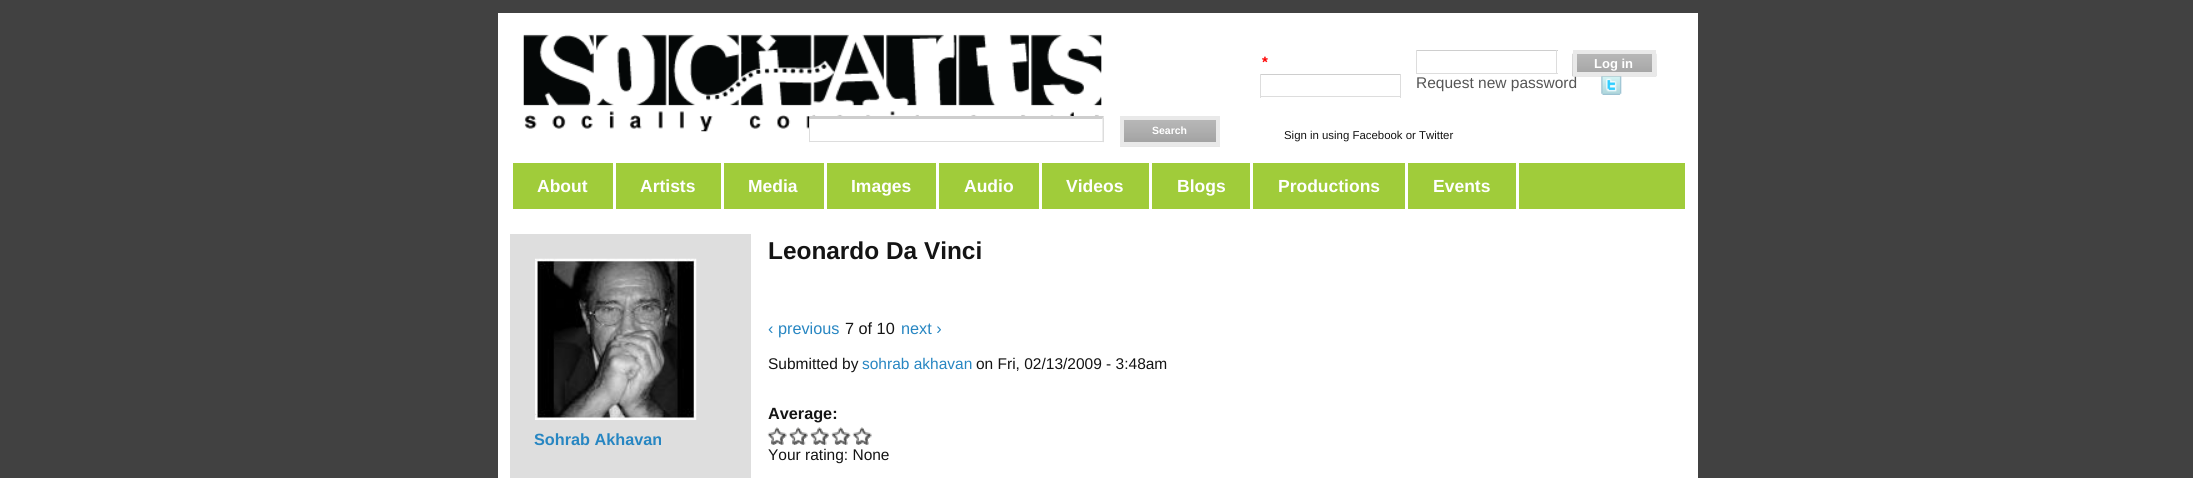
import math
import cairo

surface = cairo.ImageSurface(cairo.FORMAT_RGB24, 2193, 478)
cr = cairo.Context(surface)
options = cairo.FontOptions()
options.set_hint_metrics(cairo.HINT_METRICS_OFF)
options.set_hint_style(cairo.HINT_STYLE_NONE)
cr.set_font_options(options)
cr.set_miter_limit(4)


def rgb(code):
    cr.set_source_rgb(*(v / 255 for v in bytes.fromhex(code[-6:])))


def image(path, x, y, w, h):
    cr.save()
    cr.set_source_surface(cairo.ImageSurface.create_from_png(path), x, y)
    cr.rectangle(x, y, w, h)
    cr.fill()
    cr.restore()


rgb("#414141")
cr.paint()
rgb("#ffffff")
cr.rectangle(498, 13, 1200, 465)
cr.fill()
image("img/1.png", 523, 34, 580, 98)
cr.rectangle(810, 119, 293, 10)
cr.fill()
rgb("#cecece")
cr.new_path()
cr.move_to(809, 116)
cr.line_to(1104, 116)
cr.line_to(1102, 119)
cr.line_to(810, 119)
cr.close_path()
cr.fill()
rgb("#dddddd")
cr.new_path()
cr.move_to(1104, 116)
cr.line_to(1104, 142.5)
cr.line_to(1102.5, 141)
cr.line_to(1102.5, 119)
cr.close_path()
cr.fill()
cr.rectangle(809, 141, 295, 1)
cr.fill()
cr.new_path()
cr.move_to(809, 142.5)
cr.line_to(809, 116)
cr.line_to(810, 119)
cr.line_to(810, 141)
cr.close_path()
cr.fill()
image("img/2.png", 1120, 120, 100, 27)
cr.rectangle(1122, 118, 96, 26)
rgb("#e9e9e9")
cr.set_line_width(4)
cr.stroke()
for x, y, w, h, color in [
    (1260, 74, 141, 1, "#cecece"),
    (1400, 74, 1, 24, "#dddddd"),
    (1260, 96, 141, 1, "#dddddd"),
    (1260, 74, 1, 24, "#dddddd"),
    (1416, 50, 142, 1, "#cecece"),
    (1556, 50, 1, 24, "#dddddd"),
    (1416, 73, 142, 1, "#dddddd"),
    (1416, 50, 1, 24, "#dddddd"),
]:
    rgb(color)
    cr.rectangle(x, y, w, h)
    cr.fill()
image("img/4.png", 1601, 76, 21, 19)
for x, y, w, h, color in [
    (513, 163, 1172, 46, "#a0cc3a"),
    (613, 163, 3, 46, "#ffffff"),
    (721, 163, 3, 46, "#ffffff"),
    (824, 163, 3, 46, "#ffffff"),
    (936, 163, 3, 46, "#ffffff"),
    (1039, 163, 3, 46, "#ffffff"),
    (1149, 163, 3, 46, "#ffffff"),
    (1250, 163, 3, 46, "#ffffff"),
    (1516, 163, 3, 46, "#ffffff"),
    (1405, 163, 3, 46, "#ffffff"),
    (510, 234, 241, 244, "#dedede"),
]:
    rgb(color)
    cr.rectangle(x, y, w, h)
    cr.fill()
image("img/5.png", 535, 258, 162, 162)
image("img/6.png", 767, 427, 20, 18)
image("img/7.png", 768, 427, 19, 18)
image("img/8.png", 788, 427, 20, 18)
image("img/9.png", 789, 427, 19, 18)
image("img/10.png", 810, 427, 19, 18)
image("img/11.png", 810, 427, 19, 18)
image("img/12.png", 831, 427, 20, 18)
image("img/13.png", 832, 427, 19, 18)
image("img/6.png", 852, 427, 20, 18)
image("img/7.png", 853, 427, 19, 18)
cr.select_font_face("Liberation Sans", cairo.FONT_SLANT_NORMAL, cairo.FONT_WEIGHT_BOLD)
cr.set_font_size(10.5)
rgb("#ffffff")
cr.move_to(1152, 134)
cr.show_text("Search")
cr.set_font_size(15)
rgb("#ff0000")
cr.move_to(1262, 67)
cr.show_text("*")
cr.select_font_face("Liberation Sans")
cr.set_font_size(15.5)
rgb("#555555")
cr.move_to(1416, 88)
cr.show_text("Request new password")
image("img/3.png", 1572, 53, 85, 24)
cr.rectangle(1575, 52, 79, 22)
rgb("#e9e9e9")
cr.stroke()
cr.select_font_face("Liberation Sans", cairo.FONT_SLANT_NORMAL, cairo.FONT_WEIGHT_BOLD)
cr.set_font_size(13)
rgb("#ffffff")
cr.move_to(1594, 68)
cr.show_text("Log in")
cr.select_font_face("Liberation Sans")
cr.set_font_size(11.4)
rgb("#141414")
cr.move_to(1284, 139)
cr.show_text("Sign in using Facebook or Twitter")
cr.select_font_face("Liberation Sans", cairo.FONT_SLANT_NORMAL, cairo.FONT_WEIGHT_BOLD)
cr.set_font_size(17.5)
rgb("#ffffff")
for x, y, s in [
    (537, 192, "About"),
    (640, 192, "Artists"),
    (748, 192, "Media"),
    (851, 192, "Images"),
    (964, 192, "Audio"),
    (1066, 192, "Videos"),
    (1177, 192, "Blogs"),
    (1278, 192, "Productions"),
    (1433, 192, "Events"),
]:
    cr.move_to(x, y)
    cr.show_text(s)
cr.set_font_size(16.25)
rgb("#2786c2")
cr.move_to(534, 445)
cr.show_text("Sohrab Akhavan")
cr.set_font_size(24.4)
rgb("#141414")
cr.move_to(768, 259)
cr.show_text("Leonardo Da Vinci")
cr.select_font_face("Liberation Sans")
cr.set_font_size(16.25)
rgb("#2786c2")
cr.move_to(768, 334)
cr.show_text("‹ previous")
rgb("#141414")
cr.move_to(845, 334)
cr.show_text("7 of 10")
rgb("#2786c2")
cr.move_to(901, 334)
cr.show_text("next ›")
cr.set_font_size(15.5)
rgb("#141414")
cr.move_to(768, 369)
cr.show_text("Submitted by")
rgb("#2786c2")
cr.move_to(862, 369)
cr.show_text("sohrab akhavan")
rgb("#141414")
cr.move_to(976, 369)
cr.show_text("on Fri, 02/13/2009 - 3:48am")
cr.select_font_face("Liberation Sans", cairo.FONT_SLANT_NORMAL, cairo.FONT_WEIGHT_BOLD)
cr.set_font_size(16.25)
cr.move_to(768, 419)
cr.show_text("Average:")
cr.select_font_face("Liberation Sans")
cr.set_font_size(15.5)
cr.move_to(768, 460)
cr.show_text("Your rating: None")
surface.write_to_png("page.png")
